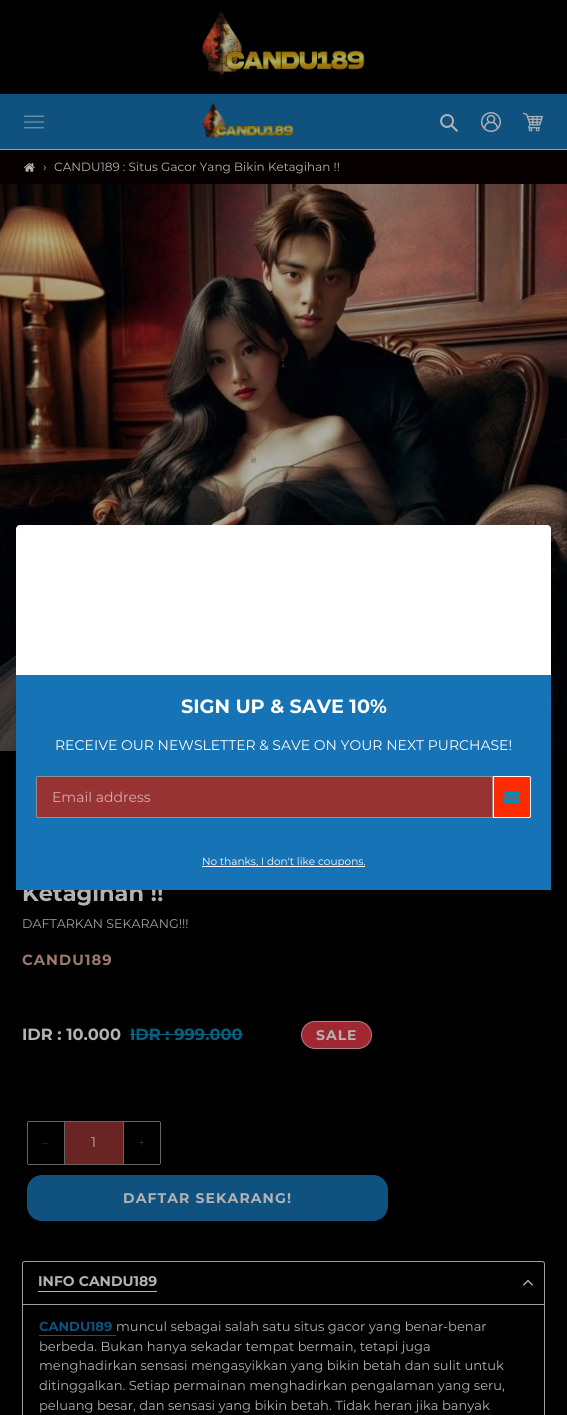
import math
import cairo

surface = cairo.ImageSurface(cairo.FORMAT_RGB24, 567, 1415)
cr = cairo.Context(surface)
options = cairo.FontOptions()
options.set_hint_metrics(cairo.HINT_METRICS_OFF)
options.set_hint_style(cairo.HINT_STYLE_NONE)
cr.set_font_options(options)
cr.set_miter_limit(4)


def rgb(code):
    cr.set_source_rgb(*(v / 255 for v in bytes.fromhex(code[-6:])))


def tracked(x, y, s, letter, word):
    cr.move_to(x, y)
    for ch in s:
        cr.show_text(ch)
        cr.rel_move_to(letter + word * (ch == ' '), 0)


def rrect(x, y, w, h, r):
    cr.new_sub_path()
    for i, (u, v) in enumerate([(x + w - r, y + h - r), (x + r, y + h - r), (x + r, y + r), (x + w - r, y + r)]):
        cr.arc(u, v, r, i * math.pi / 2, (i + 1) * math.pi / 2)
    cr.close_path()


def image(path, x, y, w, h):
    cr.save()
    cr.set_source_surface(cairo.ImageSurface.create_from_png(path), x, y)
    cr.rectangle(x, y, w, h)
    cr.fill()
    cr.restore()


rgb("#000000")
cr.paint()
image("img/1.png", 202, 10, 163, 68)
rgb("#0f517f")
cr.rectangle(0, 94, 567, 55)
cr.fill()
rgb("#a0a0a0")
cr.rectangle(0, 149, 567, 1)
cr.fill()
image("img/2.png", 24, 115, 20, 14)
image("img/3.png", 201, 103, 93, 37)
image("img/4.png", 440, 114, 18, 18)
image("img/5.png", 481, 112, 20, 20)
image("img/6.png", 523, 112, 20, 20)
rgb("#060000")
cr.rectangle(0, 150, 567, 34)
cr.fill()
image("img/7.png", 24, 163, 11, 9)
image("img/8.png", 0, 184, 567, 567)
rgb("#06617f")
cr.rectangle(130, 1034, 113, 1)
cr.fill()
rgb("#a12831")
rrect(301.5, 1021.5, 70, 27, 13.5)
cr.fill_preserve()
rgb("#b37f87")
cr.set_line_width(1)
cr.stroke()
for x, y, w, h, color in [
    (28, 1121, 36, 1, "#656565"),
    (28, 1164, 36, 1, "#656565"),
    (27, 1122, 1, 42, "#656565"),
]:
    rgb(color)
    cr.rectangle(x, y, w, h)
    cr.fill()
rgb("#6a2424")
cr.rectangle(64.5, 1121.5, 59, 43)
cr.fill_preserve()
rgb("#656565")
cr.stroke()
for x, y, w, h, color in [
    (124, 1121, 36, 1, "#656565"),
    (160, 1122, 1, 42, "#656565"),
    (124, 1164, 36, 1, "#656565"),
]:
    rgb(color)
    cr.rectangle(x, y, w, h)
    cr.fill()
rgb("#0f517f")
rrect(27, 1175, 361, 46, 15)
cr.fill()
cr.new_path()
cr.move_to(25, 1261.5)
cr.line_to(542, 1261.5)
cr.curve_to(543.5, 1261.5, 544.5, 1262.5, 544.5, 1264)
cr.line_to(544.5, 1304.5)
cr.line_to(22.5, 1304.5)
cr.line_to(22.5, 1264)
cr.curve_to(22.5, 1262.5, 23.5, 1261.5, 25, 1261.5)
cr.close_path()
rgb("#a0a0a0")
cr.stroke()
rgb("#b3b3b3")
cr.rectangle(38, 1291, 119, 1)
cr.fill()
image("img/9.png", 523, 1280, 10, 6)
for x, y, w, h, color in [
    (544, 1305, 1, 110, "#a0a0a0"),
    (22, 1305, 1, 110, "#a0a0a0"),
    (39, 1335, 77, 1, "#0f517f"),
]:
    rgb(color)
    cr.rectangle(x, y, w, h)
    cr.fill()
cr.select_font_face("Montserrat")
cr.set_font_size(12)
rgb("#b3b3b3")
cr.move_to(43, 171)
cr.show_text("›")
cr.move_to(54, 171)
cr.show_text("CANDU189 : Situs Gacor Yang Bikin Ketagihan !!")
cr.select_font_face("Montserrat", cairo.FONT_SLANT_NORMAL, cairo.FONT_WEIGHT_BOLD)
cr.set_font_size(22.5)
cr.move_to(22, 901)
cr.show_text("Ketagihan !!")
cr.select_font_face("Montserrat")
cr.set_font_size(12.6)
rgb("#a3a3a3")
cr.move_to(22, 928)
cr.show_text("DAFTARKAN SEKARANG!!!")
cr.select_font_face("Montserrat", cairo.FONT_SLANT_NORMAL, cairo.FONT_WEIGHT_BOLD)
cr.set_font_size(14.75)
rgb("#9b796e")
tracked(22, 965, "CANDU189", 1, 0)
cr.set_font_size(16.25)
rgb("#b3b3b3")
cr.move_to(22, 1040)
cr.show_text("IDR : 10.000")
rgb("#06617f")
cr.move_to(130, 1040)
cr.show_text("IDR : 999.000")
cr.set_font_size(14)
rgb("#b3b3b3")
tracked(316, 1040, "SALE", 1, 0)
cr.select_font_face("Montserrat Light")
cr.set_font_size(13)
rgb("#413931")
tracked(42, 1147, "–", 1, 0)
cr.select_font_face("Montserrat")
cr.set_font_size(14)
rgb("#b3b3b3")
cr.move_to(91, 1147)
cr.show_text("1")
cr.select_font_face("Montserrat Light")
cr.set_font_size(13)
rgb("#413931")
tracked(138, 1147, "+", 1, 0)
cr.select_font_face("Montserrat", cairo.FONT_SLANT_NORMAL, cairo.FONT_WEIGHT_BOLD)
cr.set_font_size(14)
rgb("#b3b3b3")
tracked(123, 1203, "DAFTAR SEKARANG!", 1.1, 0)
cr.move_to(38, 1286)
cr.show_text("INFO CANDU189")
cr.set_font_size(13.05)
rgb("#0f517f")
cr.move_to(39, 1331)
cr.show_text("CANDU189")
cr.select_font_face("Montserrat")
rgb("#b3b3b3")
for x, y, s in [
    (116, 1331, "muncul sebagai salah satu situs gacor yang benar-benar"),
    (39, 1351, "berbeda. Bukan hanya sekadar tempat bermain, tetapi juga"),
    (39, 1370, "menghadirkan sensasi mengasyikkan yang bikin betah dan sulit untuk"),
    (39, 1390, "ditinggalkan. Setiap permainan menghadirkan pengalaman yang seru,"),
    (39, 1410, "peluang besar, dan sensasi yang bikin betah. Tidak heran jika banyak"),
]:
    cr.move_to(x, y)
    cr.show_text(s)
rgb("#ffffff")
rrect(16, 525, 535, 365, 4)
cr.fill()
rgb("#1673b5")
cr.rectangle(16, 675, 535, 215)
cr.fill()
cr.select_font_face("Montserrat", cairo.FONT_SLANT_NORMAL, cairo.FONT_WEIGHT_BOLD)
cr.set_font_size(19.25)
rgb("#ffffff")
cr.move_to(181, 713)
cr.show_text("SIGN UP & SAVE 10%")
cr.select_font_face("Montserrat")
cr.set_font_size(14)
cr.move_to(55, 750)
cr.show_text("RECEIVE OUR NEWSLETTER & SAVE ON YOUR NEXT PURCHASE!")
rgb("#983333")
cr.new_path()
cr.move_to(38, 776.5)
cr.line_to(492.5, 776.5)
cr.line_to(492.5, 817.5)
cr.line_to(38, 817.5)
cr.curve_to(37, 817.5, 36.5, 817, 36.5, 816)
cr.line_to(36.5, 778)
cr.curve_to(36.5, 777, 37, 776.5, 38, 776.5)
cr.close_path()
cr.fill_preserve()
rgb("#909090")
cr.stroke()
rgb("#d6adad")
cr.move_to(52, 802)
cr.show_text("Email address")
rgb("#ff2a00")
cr.new_path()
cr.move_to(493.5, 776.5)
cr.line_to(529, 776.5)
cr.curve_to(530, 776.5, 530.5, 777, 530.5, 778)
cr.line_to(530.5, 816)
cr.curve_to(530.5, 817, 530, 817.5, 529, 817.5)
cr.line_to(493.5, 817.5)
cr.close_path()
cr.fill_preserve()
rgb("#ffffff")
cr.stroke()
image("img/10.png", 504, 791, 16, 13)
cr.rectangle(202, 866, 163, 1)
cr.fill()
cr.set_font_size(10.5)
cr.move_to(202, 865)
cr.show_text("No thanks, I don't like coupons.")
surface.write_to_png("page.png")
